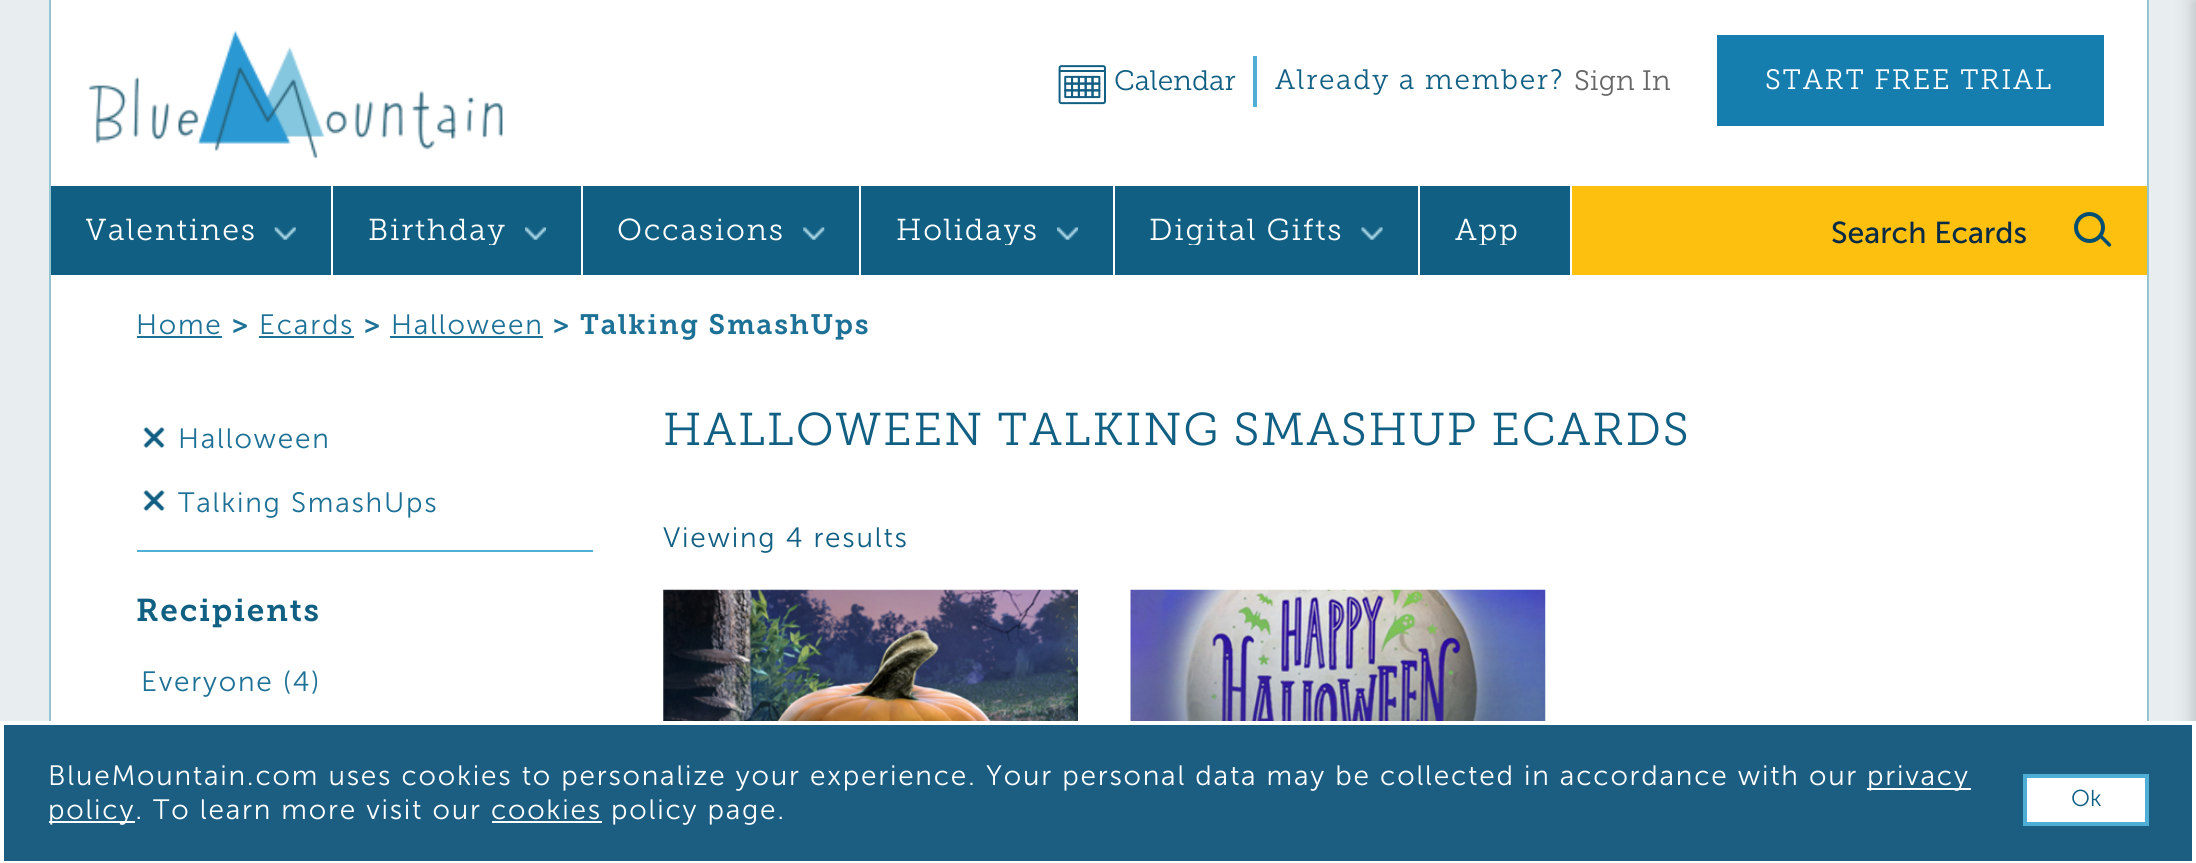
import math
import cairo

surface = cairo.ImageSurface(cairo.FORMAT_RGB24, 2196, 863)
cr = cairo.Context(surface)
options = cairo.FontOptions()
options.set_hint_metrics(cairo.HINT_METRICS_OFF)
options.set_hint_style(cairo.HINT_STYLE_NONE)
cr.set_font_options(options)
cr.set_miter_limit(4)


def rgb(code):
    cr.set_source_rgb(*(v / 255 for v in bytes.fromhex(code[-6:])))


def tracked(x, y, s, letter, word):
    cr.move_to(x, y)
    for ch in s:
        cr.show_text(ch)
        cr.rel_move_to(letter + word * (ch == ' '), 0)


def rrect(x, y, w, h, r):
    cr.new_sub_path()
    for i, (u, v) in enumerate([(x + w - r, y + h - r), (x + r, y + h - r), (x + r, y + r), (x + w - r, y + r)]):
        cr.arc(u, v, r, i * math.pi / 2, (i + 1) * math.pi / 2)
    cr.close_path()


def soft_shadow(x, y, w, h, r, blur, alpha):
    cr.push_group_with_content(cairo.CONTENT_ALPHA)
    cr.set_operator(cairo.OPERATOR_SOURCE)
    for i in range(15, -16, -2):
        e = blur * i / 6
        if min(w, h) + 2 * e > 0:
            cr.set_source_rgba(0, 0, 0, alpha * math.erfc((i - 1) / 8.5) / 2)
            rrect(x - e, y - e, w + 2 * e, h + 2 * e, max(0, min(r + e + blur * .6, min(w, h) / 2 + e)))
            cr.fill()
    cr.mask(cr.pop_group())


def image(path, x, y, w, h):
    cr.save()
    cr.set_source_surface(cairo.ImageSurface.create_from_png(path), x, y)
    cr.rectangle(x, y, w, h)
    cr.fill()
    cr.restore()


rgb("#e8edf0")
cr.paint()
for x, y, w, h, color in [
    (51, 0, 2096, 721, "#ffffff"),
    (2147, 0, 2, 721, "#95c5d1"),
    (49, 0, 2, 721, "#95c5d1"),
]:
    rgb(color)
    cr.rectangle(x, y, w, h)
    cr.fill()
image("img/1.png", 88, 31, 415, 127)
rgb("#4eaed6")
cr.rectangle(1253, 56, 4, 51)
cr.fill()
image("img/2.png", 1058, 65, 48, 40)
rgb("#157eae")
cr.rectangle(1717, 35, 387, 91)
cr.fill()
rgb("#115f83")
cr.rectangle(51, 186, 1519, 89)
cr.fill()
image("img/3.png", 274, 227, 22, 13)
rgb("#ffffff")
cr.rectangle(331, 186, 2, 89)
cr.fill()
image("img/4.png", 525, 227, 21, 13)
cr.rectangle(581, 186, 2, 89)
cr.fill()
image("img/5.png", 803, 227, 22, 13)
cr.rectangle(859, 186, 2, 89)
cr.fill()
image("img/6.png", 1057, 227, 21, 13)
cr.rectangle(1113, 186, 2, 89)
cr.fill()
image("img/7.png", 1361, 227, 22, 13)
cr.rectangle(1418, 186, 2, 89)
cr.fill()
rgb("#fec00f")
cr.rectangle(1572, 186, 575, 89)
cr.fill()
cr.arc(2089.5, 227.5, 13.5, 0, 2 * math.pi)
rgb("#004e71")
cr.set_line_width(4)
cr.stroke()
cr.new_path()
cr.move_to(2099.5, 235)
cr.curve_to(2100, 234.5, 2101.5, 234.5, 2102, 235)
cr.line_to(2110.5, 243.5)
cr.curve_to(2111.5, 244.5, 2111.5, 245.5, 2110.5, 246)
cr.curve_to(2110, 247, 2109, 247, 2108, 246)
cr.line_to(2099.5, 237.5)
cr.curve_to(2099, 237, 2099, 235.5, 2099.5, 235)
cr.close_path()
cr.fill()
rgb("#000000")
soft_shadow(2193, 0, 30, 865, 0, 9, 0.2)
for x, y, w, h, color in [
    (137, 336, 85, 2, "#1d7196"),
    (259, 336, 95, 2, "#1d7196"),
    (390, 336, 153, 2, "#1d7196"),
]:
    rgb(color)
    cr.rectangle(x, y, w, h)
    cr.fill()
image("img/8.png", 143, 427, 22, 21)
image("img/8.png", 143, 490, 22, 21)
rgb("#4fafd6")
cr.rectangle(137, 550, 456, 2)
cr.fill()
image("img/9.png", 663, 589, 415, 132)
image("img/10.png", 1130, 589, 416, 132)
rgb("#1c5d82")
cr.rectangle(2, 723, 2192, 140)
cr.fill_preserve()
rgb("#ffffff")
cr.stroke()
for x, y, w, h, color in [
    (1867, 788, 104, 2, "#ffffff"),
    (49, 821, 86, 2, "#ffffff"),
    (492, 821, 110, 2, "#ffffff"),
]:
    rgb(color)
    cr.rectangle(x, y, w, h)
    cr.fill()
cr.rectangle(2025, 776, 122, 48)
cr.fill_preserve()
rgb("#4eaed6")
cr.stroke()
cr.select_font_face("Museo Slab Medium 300 Light")
cr.set_font_size(28)
rgb("#115f83")
cr.move_to(1114, 90)
cr.show_text("Calendar")
tracked(1275, 89, "Already a member?", 1.75, 0)
rgb("#666666")
cr.move_to(1574, 90)
cr.show_text("Sign In")
rgb("#ffffff")
tracked(1765, 89, "START FREE TRIAL", 1.75, 0)
cr.save()
cr.rectangle(86, 215, 171, 30)
cr.clip()
cr.set_font_size(30.25)
tracked(85, 240, "Valentines", 1.75, 0)
cr.restore()
cr.save()
cr.rectangle(368, 215, 138, 30)
cr.clip()
cr.set_font_size(30.25)
tracked(368, 240, "Birthday", 1.75, 0)
cr.restore()
cr.set_font_size(30.25)
tracked(617, 240, "Occasions", 1.75, 0)
cr.save()
cr.rectangle(896, 215, 144, 30)
cr.clip()
tracked(896, 240, "Holidays", 1.75, 0)
cr.restore()
cr.save()
cr.rectangle(1150, 215, 194, 30)
cr.clip()
tracked(1149, 240, "Digital Gifts", 1.75, 0)
cr.restore()
cr.save()
cr.rectangle(1454, 215, 65, 30)
cr.clip()
tracked(1455, 240, "App", 1.75, 0)
cr.restore()
cr.select_font_face("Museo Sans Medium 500")
rgb("#0a2b45")
cr.move_to(1831, 243)
cr.show_text("Search Ecards")
cr.select_font_face("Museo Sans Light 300 Light")
cr.set_font_size(28)
rgb("#1d7096")
tracked(136, 334, "Home", 1.75, 0)
cr.select_font_face("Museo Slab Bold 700 SemiBold")
tracked(231, 334, ">", 1.75, 0)
cr.select_font_face("Museo Sans Light 300 Light")
tracked(259, 334, "Ecards", 1.75, 0)
cr.select_font_face("Museo Slab Bold 700 SemiBold")
tracked(363, 334, ">", 1.75, 0)
cr.select_font_face("Museo Sans Light 300 Light")
tracked(391, 334, "Halloween", 1.75, 0)
cr.select_font_face("Museo Slab Bold 700 SemiBold")
tracked(552, 334, ">", 1.75, 0)
tracked(580, 334, "Talking SmashUps", 1.75, 0)
cr.select_font_face("Museo Sans Light 300 Light")
tracked(178, 448, "Halloween", 1.75, 0)
tracked(178, 512, "Talking SmashUps", 1.75, 0)
cr.select_font_face("Museo Slab Bold 700 SemiBold")
cr.set_font_size(31.5)
rgb("#115f83")
tracked(136, 621, "Recipients", 1.75, 0)
cr.select_font_face("Museo Sans Light 300 Light")
cr.set_font_size(28)
rgb("#1d7096")
tracked(141, 691, "Everyone (4)", 1.75, 0)
cr.select_font_face("Museo Slab Medium 300 Light")
cr.set_font_size(45.9)
rgb("#115f83")
tracked(663, 445, "HALLOWEEN TALKING SMASHUP ECARDS", 1.75, 0)
cr.select_font_face("Museo Sans Light 300 Light")
cr.set_font_size(28)
tracked(663, 547, "Viewing 4 results", 1.75, 0)
rgb("#ffffff")
for x, y, s in [
    (48, 785, "BlueMountain.com uses cookies to personalize your experience. Your personal data may be collected in accordance with our"),
    (1867, 785, "privacy"),
    (48, 819, "policy. To learn more visit our cookies policy page."),
]:
    tracked(x, y, s, 1.75, 0)
cr.set_font_size(23)
rgb("#115f83")
cr.move_to(2071, 806)
cr.show_text("Ok")
surface.write_to_png("page.png")
